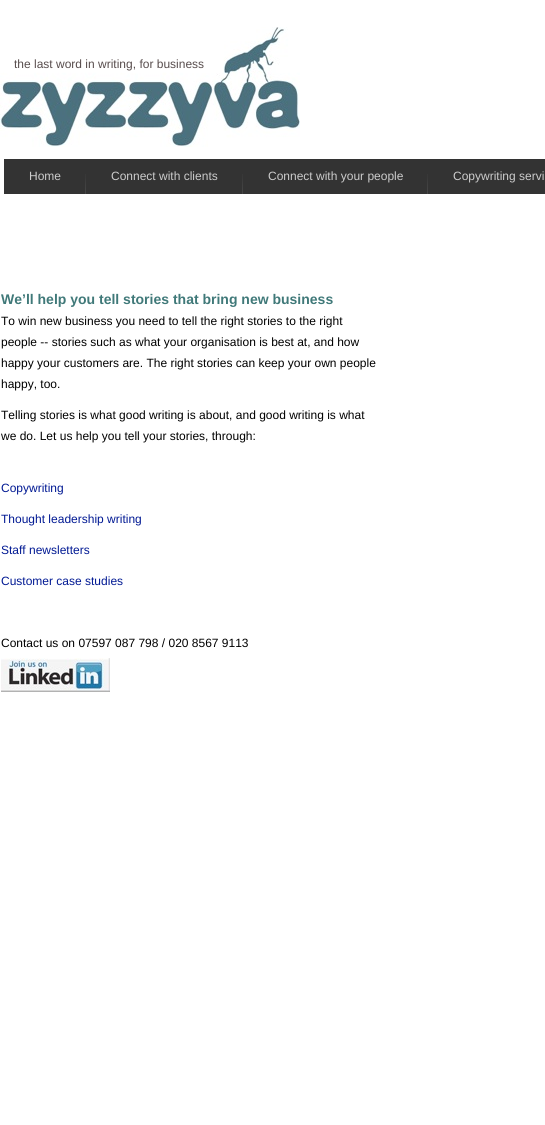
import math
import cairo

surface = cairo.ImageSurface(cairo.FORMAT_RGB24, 545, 1125)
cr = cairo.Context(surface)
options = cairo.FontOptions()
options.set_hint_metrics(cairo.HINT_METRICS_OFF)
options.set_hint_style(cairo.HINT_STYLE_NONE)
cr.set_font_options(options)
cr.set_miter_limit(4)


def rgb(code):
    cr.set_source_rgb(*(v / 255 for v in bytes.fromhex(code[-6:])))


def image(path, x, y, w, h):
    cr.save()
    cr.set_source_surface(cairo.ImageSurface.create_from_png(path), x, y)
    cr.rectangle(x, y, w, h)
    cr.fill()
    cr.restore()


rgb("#ffffff")
cr.paint()
image("img/1.png", 0, 27, 300, 120)
rgb("#333333")
cr.rectangle(4, 159, 541, 35)
cr.fill()
image("img/2.png", 85, 174, 1, 20)
image("img/2.png", 242, 174, 1, 20)
image("img/2.png", 427, 174, 1, 20)
image("img/3.png", 1, 658, 109, 34)
cr.select_font_face("Liberation Sans")
cr.set_font_size(12)
rgb("#584d4d")
cr.move_to(14, 68)
cr.show_text("the last word in writing, for business")
rgb("#cccccc")
for x, y, s in [
    (29, 180, "Home"),
    (111, 180, "Connect with clients"),
    (268, 180, "Connect with your people"),
    (453, 180, "Copywriting servi"),
]:
    cr.move_to(x, y)
    cr.show_text(s)
cr.select_font_face("Liberation Sans", cairo.FONT_SLANT_NORMAL, cairo.FONT_WEIGHT_BOLD)
cr.set_font_size(14)
rgb("#407979")
cr.move_to(1, 304)
cr.show_text("We’ll help you tell stories that bring new business")
cr.select_font_face("Liberation Sans")
cr.set_font_size(12)
rgb("#000000")
for x, y, s in [
    (1, 325, "To win new business you need to tell the right stories to the right"),
    (1, 346, "people -- stories such as what your organisation is best at, and how"),
    (1, 367, "happy your customers are. The right stories can keep your own people"),
    (1, 388, "happy, too."),
    (1, 419, "Telling stories is what good writing is about, and good writing is what"),
    (1, 440, "we do. Let us help you tell your stories, through:"),
]:
    cr.move_to(x, y)
    cr.show_text(s)
rgb("#011993")
for x, y, s in [
    (1, 492, "Copywriting"),
    (1, 523, "Thought leadership writing"),
    (1, 554, "Staff newsletters"),
    (1, 585, "Customer case studies"),
]:
    cr.move_to(x, y)
    cr.show_text(s)
rgb("#000000")
cr.move_to(1, 647)
cr.show_text("Contact us on 07597 087 798 / 020 8567 9113")
surface.write_to_png("page.png")
